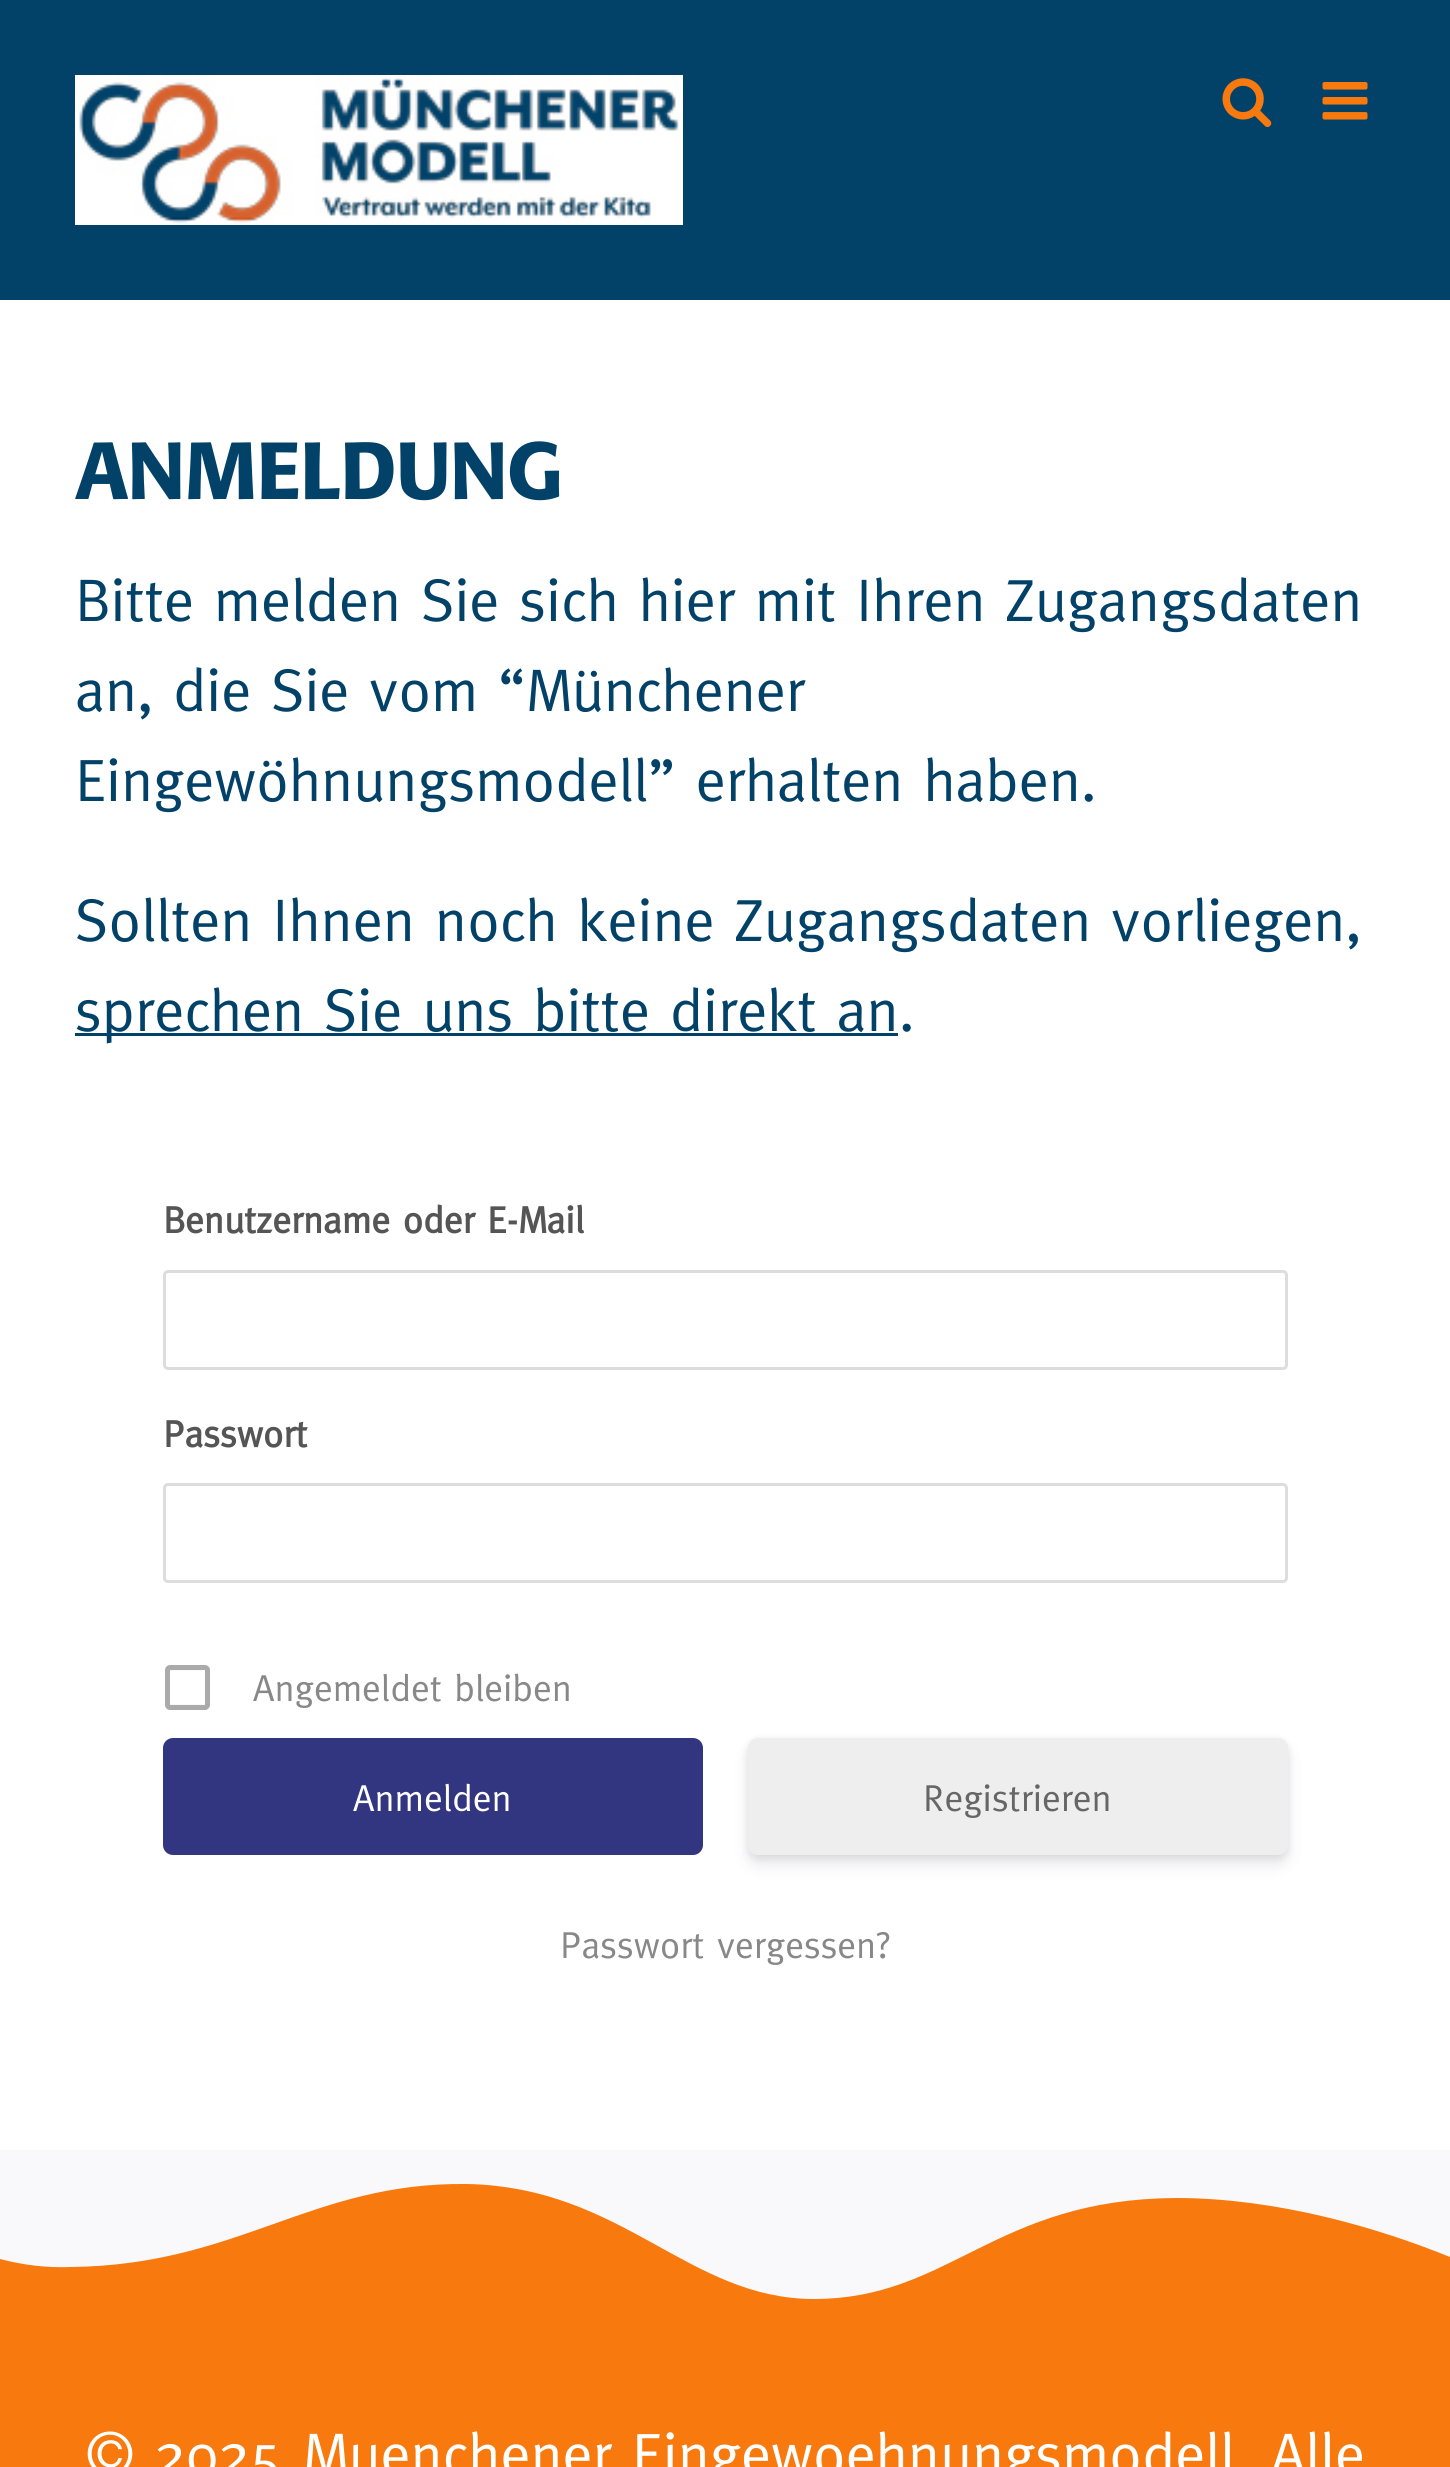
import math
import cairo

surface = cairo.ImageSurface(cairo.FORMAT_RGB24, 1450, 2467)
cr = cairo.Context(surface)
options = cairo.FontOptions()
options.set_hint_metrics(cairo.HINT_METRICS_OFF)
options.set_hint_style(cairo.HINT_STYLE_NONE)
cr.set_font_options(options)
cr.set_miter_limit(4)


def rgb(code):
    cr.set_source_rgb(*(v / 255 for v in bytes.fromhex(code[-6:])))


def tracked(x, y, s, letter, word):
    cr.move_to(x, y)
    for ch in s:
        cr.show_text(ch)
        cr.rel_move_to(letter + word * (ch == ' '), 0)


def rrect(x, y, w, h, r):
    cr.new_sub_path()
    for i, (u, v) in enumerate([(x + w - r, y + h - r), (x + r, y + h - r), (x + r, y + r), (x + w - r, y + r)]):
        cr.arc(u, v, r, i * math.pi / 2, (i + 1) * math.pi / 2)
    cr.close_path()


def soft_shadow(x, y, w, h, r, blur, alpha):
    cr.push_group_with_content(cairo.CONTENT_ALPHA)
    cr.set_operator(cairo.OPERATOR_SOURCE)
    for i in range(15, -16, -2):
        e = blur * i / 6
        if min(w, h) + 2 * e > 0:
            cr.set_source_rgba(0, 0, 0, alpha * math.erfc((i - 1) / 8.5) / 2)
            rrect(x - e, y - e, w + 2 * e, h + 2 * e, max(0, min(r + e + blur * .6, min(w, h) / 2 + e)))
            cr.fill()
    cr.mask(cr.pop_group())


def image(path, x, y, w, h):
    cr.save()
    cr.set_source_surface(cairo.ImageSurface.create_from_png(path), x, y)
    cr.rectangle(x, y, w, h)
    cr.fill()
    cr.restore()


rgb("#ffffff")
cr.paint()
rgb("#024269")
cr.rectangle(0, 0, 1450, 300)
cr.fill()
image("img/1.png", 75, 75, 608, 150)
image("img/2.png", 1222, 78, 50, 49)
image("img/3.png", 1322, 82, 46, 38)
cr.rectangle(75, 1033, 823, 3)
cr.fill()
rrect(164.5, 1271.5, 1122, 97, 3.5)
rgb("#dddddd")
cr.set_line_width(3)
cr.stroke()
rrect(164.5, 1484.5, 1122, 97, 3.5)
cr.stroke()
image("img/4.png", 165, 1665, 45, 45)
rgb("#32357f")
rrect(163, 1738, 540, 117, 10)
cr.fill()
rgb("#000000")
soft_shadow(748, 1740, 540, 118, 10, 4, 0.08)
rgb("#32325d")
soft_shadow(748, 1748, 540, 117, 10, 7.5, 0.11)
rgb("#eeeeee")
rrect(748, 1738, 540, 117, 10)
cr.fill()
rgb("#f8790e")
cr.rectangle(0, 2184, 1450, 283)
cr.fill()
cr.save()
cr.rectangle(0, 2150, 1450, 150)
cr.clip()
rgb("#f9f9fb")
cr.new_path()
cr.move_to(0, 2149)
cr.line_to(1450, 2149)
cr.line_to(1450, 2257)
cr.curve_to(1381, 2229, 1279, 2198, 1176, 2198)
cr.curve_to(994, 2199, 950, 2299, 814, 2299)
cr.curve_to(688, 2299, 623, 2187, 467, 2184)
cr.curve_to(311, 2182, 239, 2265, 71, 2267)
cr.curve_to(46, 2268, 23, 2265, 0, 2259)
cr.close_path()
cr.fill()
cr.restore()
cr.select_font_face("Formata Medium")
cr.set_font_size(80)
rgb("#024269")
tracked(75, 499, "ANMELDUNG", -1.25, 0)
cr.select_font_face("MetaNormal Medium")
cr.set_font_size(60)
for x, y, s in [
    (75, 621, "Bitte melden Sie sich hier mit Ihren Zugangsdaten"),
    (75, 711, "an, die Sie vom “Münchener"),
    (75, 801, "Eingewöhnungsmodell” erhalten haben."),
    (75, 941, "Sollten Ihnen noch keine Zugangsdaten vorliegen,"),
    (75, 1031, "sprechen Sie uns bitte direkt an."),
]:
    cr.move_to(x, y)
    cr.show_text(s)
cr.select_font_face("MetaNormal", cairo.FONT_SLANT_NORMAL, cairo.FONT_WEIGHT_BOLD)
cr.set_font_size(37.5)
rgb("#555555")
cr.move_to(163, 1233)
cr.show_text("Benutzername oder E-Mail")
cr.move_to(163, 1447)
cr.show_text("Passwort")
cr.select_font_face("MetaNormal Medium")
rgb("#888888")
cr.move_to(253, 1701)
cr.show_text("Angemeldet bleiben")
rgb("#ffffff")
cr.move_to(353, 1811)
cr.show_text("Anmelden")
rgb("#666666")
cr.move_to(923, 1811)
cr.show_text("Registrieren")
rgb("#888888")
cr.move_to(560, 1958)
cr.show_text("Passwort vergessen?")
cr.set_font_size(60)
rgb("#ffffff")
cr.move_to(86, 2475)
cr.show_text("© 2025 Muenchener Eingewoehnungsmodell. Alle")
surface.write_to_png("page.png")
